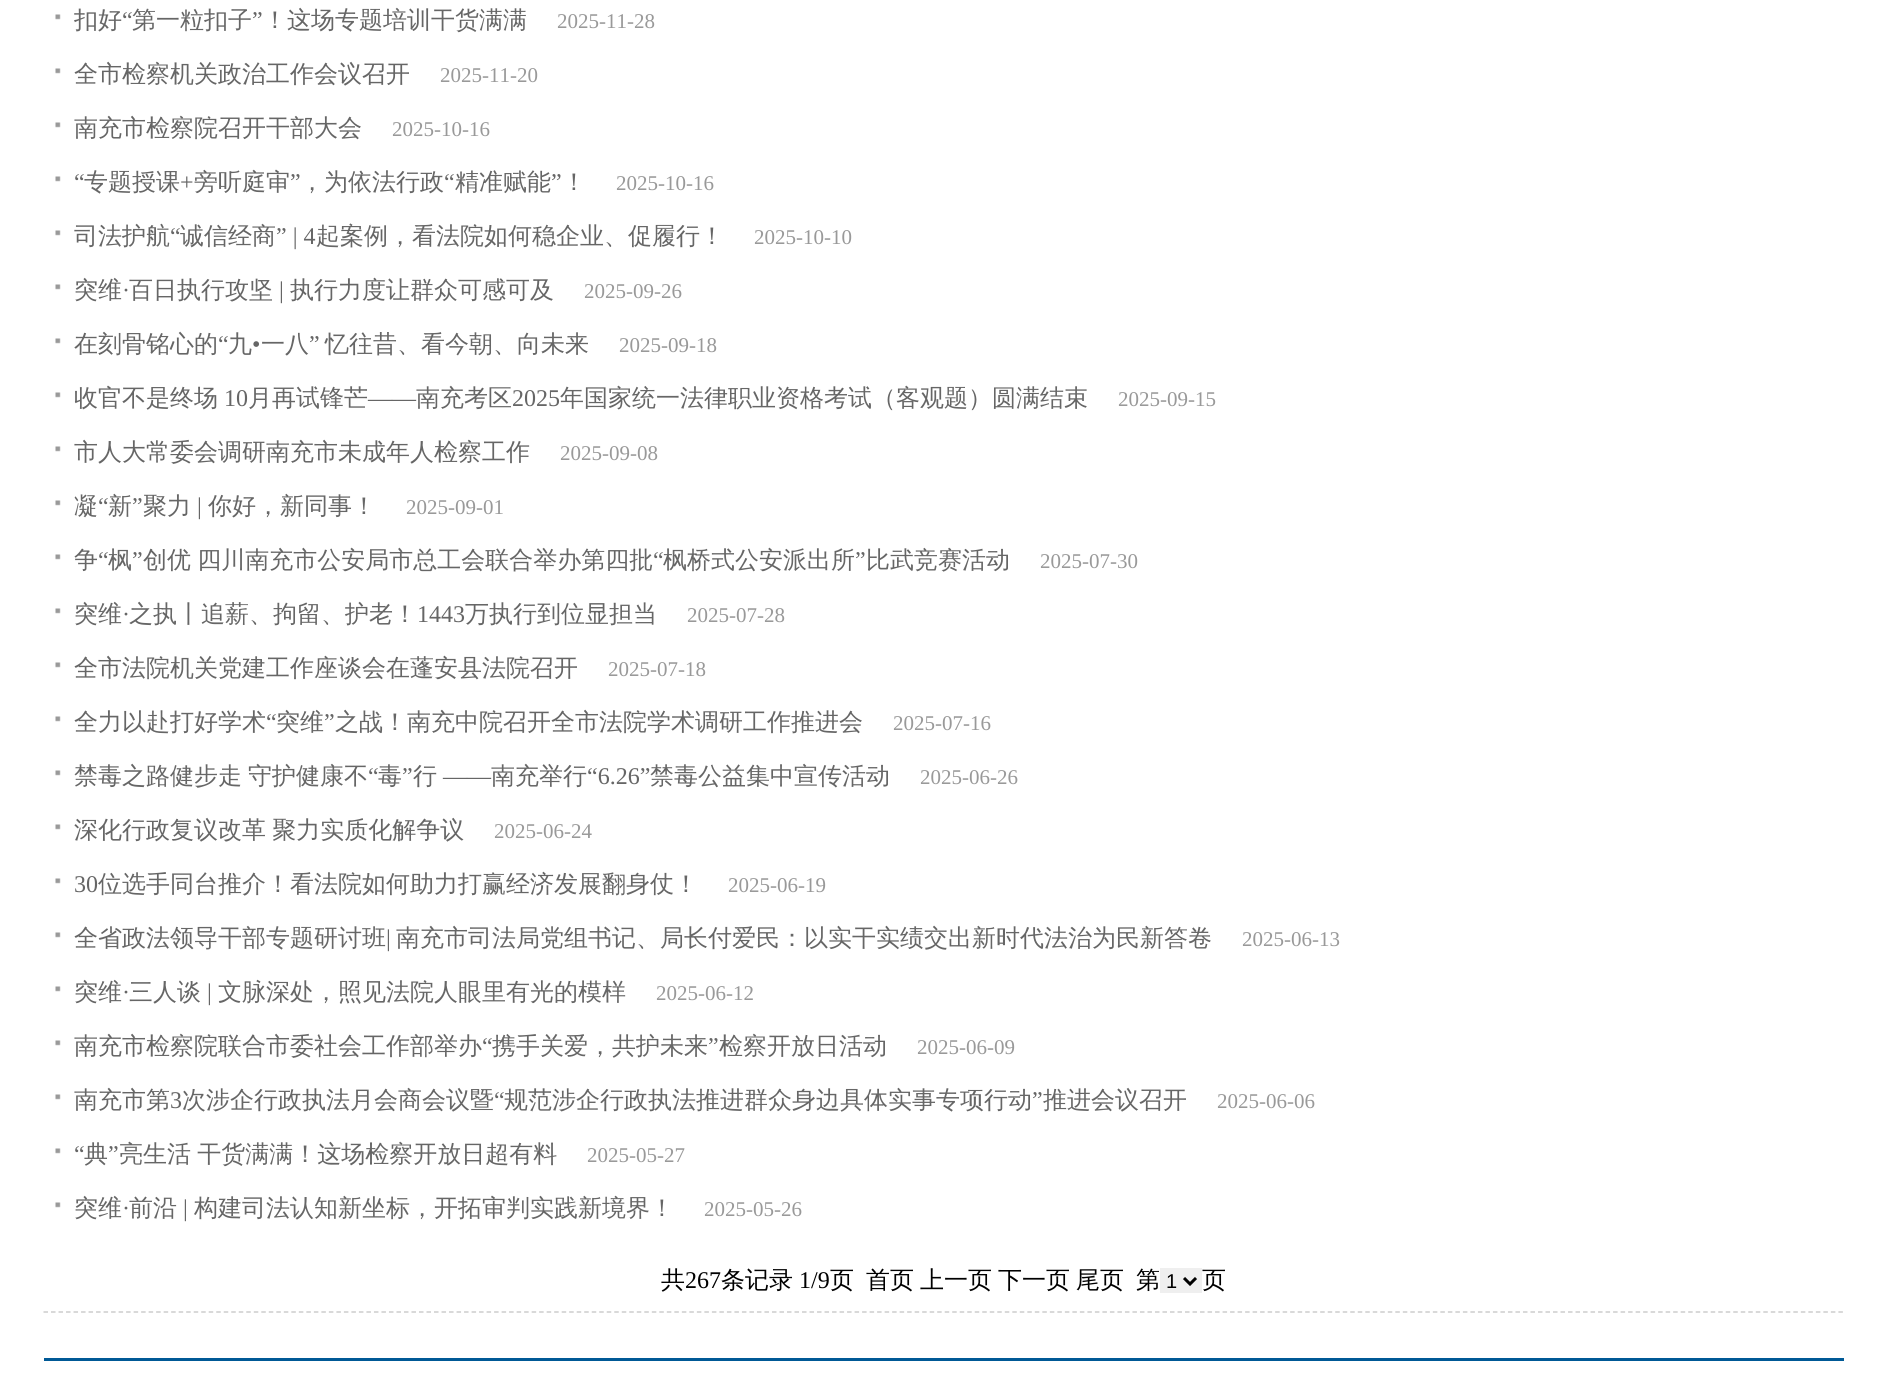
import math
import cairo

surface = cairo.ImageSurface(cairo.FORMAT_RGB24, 1886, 1393)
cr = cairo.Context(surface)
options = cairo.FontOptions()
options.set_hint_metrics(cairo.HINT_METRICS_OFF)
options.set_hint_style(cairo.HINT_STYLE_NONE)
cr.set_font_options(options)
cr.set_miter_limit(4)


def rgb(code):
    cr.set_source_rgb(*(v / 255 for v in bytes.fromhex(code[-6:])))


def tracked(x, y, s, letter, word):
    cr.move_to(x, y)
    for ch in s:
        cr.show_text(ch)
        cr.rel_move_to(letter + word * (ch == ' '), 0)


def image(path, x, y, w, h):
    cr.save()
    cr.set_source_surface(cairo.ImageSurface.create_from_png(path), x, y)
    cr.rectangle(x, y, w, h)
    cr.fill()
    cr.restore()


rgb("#ffffff")
cr.paint()
cr.new_path()
cr.move_to(43.5, 1312)
cr.line_to(1843.5, 1312)
rgb("#cccccc")
cr.set_line_width(1.5)
cr.set_dash([4.5, 3.01])
cr.stroke()
image("img/1.png", 55, 14, 6, 6)
image("img/1.png", 55, 68, 6, 6)
image("img/1.png", 55, 122, 6, 6)
image("img/1.png", 55, 176, 6, 6)
image("img/1.png", 55, 230, 6, 6)
image("img/1.png", 55, 284, 6, 6)
image("img/1.png", 55, 338, 6, 6)
image("img/1.png", 55, 392, 6, 6)
image("img/1.png", 55, 446, 6, 6)
image("img/1.png", 55, 500, 6, 6)
image("img/1.png", 55, 554, 6, 6)
image("img/1.png", 55, 608, 6, 6)
image("img/1.png", 55, 662, 6, 6)
image("img/1.png", 55, 716, 6, 6)
image("img/1.png", 55, 770, 6, 6)
image("img/1.png", 55, 824, 6, 6)
image("img/1.png", 55, 878, 6, 6)
image("img/1.png", 55, 932, 6, 6)
image("img/1.png", 55, 986, 6, 6)
image("img/1.png", 55, 1040, 6, 6)
image("img/1.png", 55, 1094, 6, 6)
image("img/1.png", 55, 1148, 6, 6)
image("img/1.png", 55, 1202, 6, 6)
rgb("#efefef")
cr.rectangle(1160, 1268, 42, 25)
cr.fill()
cr.new_path()
cr.move_to(1184, 1278)
cr.line_to(1190, 1284)
cr.line_to(1196, 1278)
rgb("#000000")
cr.set_line_width(3)
cr.set_dash([])
cr.stroke()
rgb("#005996")
cr.rectangle(44, 1358, 1800, 3)
cr.fill()
cr.select_font_face("WenQuanYi Zen Hei Medium")
cr.set_font_size(24)
rgb("#666666")
cr.move_to(74, 28)
cr.show_text("扣好")
cr.select_font_face("Liberation Serif")
cr.move_to(122, 28)
cr.show_text("“")
cr.select_font_face("WenQuanYi Zen Hei Medium")
cr.move_to(132, 28)
cr.show_text("第一粒扣子")
cr.select_font_face("Liberation Serif")
cr.move_to(252, 28)
cr.show_text("”")
cr.select_font_face("WenQuanYi Zen Hei Medium")
cr.move_to(263, 28)
cr.show_text("！这场专题培训干货满满")
cr.select_font_face("Liberation Serif")
cr.set_font_size(21)
rgb("#999999")
cr.move_to(557, 28)
cr.show_text("2025-11-28")
cr.select_font_face("WenQuanYi Zen Hei Medium")
cr.set_font_size(24)
rgb("#666666")
cr.move_to(74, 82)
cr.show_text("全市检察机关政治工作会议召开")
cr.select_font_face("Liberation Serif")
cr.set_font_size(21)
rgb("#999999")
cr.move_to(440, 82)
cr.show_text("2025-11-20")
cr.select_font_face("WenQuanYi Zen Hei Medium")
cr.set_font_size(24)
rgb("#666666")
cr.move_to(74, 136)
cr.show_text("南充市检察院召开干部大会")
cr.select_font_face("Liberation Serif")
cr.set_font_size(21)
rgb("#999999")
cr.move_to(392, 136)
cr.show_text("2025-10-16")
cr.set_font_size(24)
rgb("#666666")
cr.move_to(74, 190)
cr.show_text("“")
cr.select_font_face("WenQuanYi Zen Hei Medium")
cr.move_to(84, 190)
cr.show_text("专题授课")
cr.select_font_face("Liberation Serif")
cr.move_to(180, 190)
cr.show_text("+")
cr.select_font_face("WenQuanYi Zen Hei Medium")
cr.move_to(194, 190)
cr.show_text("旁听庭审")
cr.select_font_face("Liberation Serif")
cr.move_to(290, 190)
cr.show_text("”")
cr.select_font_face("WenQuanYi Zen Hei Medium")
cr.move_to(300, 190)
cr.show_text("，为依法行政")
cr.select_font_face("Liberation Serif")
cr.move_to(444, 190)
cr.show_text("“")
cr.select_font_face("WenQuanYi Zen Hei Medium")
cr.move_to(455, 190)
cr.show_text("精准赋能")
cr.select_font_face("Liberation Serif")
cr.move_to(551, 190)
cr.show_text("”")
cr.select_font_face("WenQuanYi Zen Hei Medium")
cr.move_to(562, 190)
cr.show_text("！")
cr.select_font_face("Liberation Serif")
cr.set_font_size(21)
rgb("#999999")
cr.move_to(616, 190)
cr.show_text("2025-10-16")
cr.select_font_face("WenQuanYi Zen Hei Medium")
cr.set_font_size(24)
rgb("#666666")
cr.move_to(74, 244)
cr.show_text("司法护航")
cr.select_font_face("Liberation Serif")
cr.move_to(170, 244)
cr.show_text("“")
cr.select_font_face("WenQuanYi Zen Hei Medium")
cr.move_to(180, 244)
cr.show_text("诚信经商")
cr.select_font_face("Liberation Serif")
cr.move_to(276, 244)
cr.show_text("” | 4")
cr.select_font_face("WenQuanYi Zen Hei Medium")
cr.move_to(316, 244)
cr.show_text("起案例，看法院如何稳企业、促履行！")
cr.select_font_face("Liberation Serif")
cr.set_font_size(21)
rgb("#999999")
cr.move_to(754, 244)
cr.show_text("2025-10-10")
cr.select_font_face("WenQuanYi Zen Hei Medium")
cr.set_font_size(24)
rgb("#666666")
cr.move_to(74, 298)
cr.show_text("突维")
cr.select_font_face("Liberation Serif")
cr.move_to(122, 298)
cr.show_text("·")
cr.select_font_face("WenQuanYi Zen Hei Medium")
cr.move_to(129, 298)
cr.show_text("百日执行攻坚")
cr.select_font_face("Liberation Serif")
cr.move_to(279, 298)
cr.show_text("|")
cr.select_font_face("WenQuanYi Zen Hei Medium")
cr.move_to(290, 298)
cr.show_text("执行力度让群众可感可及")
cr.select_font_face("Liberation Serif")
cr.set_font_size(21)
rgb("#999999")
cr.move_to(584, 298)
cr.show_text("2025-09-26")
cr.select_font_face("WenQuanYi Zen Hei Medium")
cr.set_font_size(24)
rgb("#666666")
cr.move_to(74, 352)
cr.show_text("在刻骨铭心的")
cr.select_font_face("Liberation Serif")
cr.move_to(218, 352)
cr.show_text("“")
cr.select_font_face("WenQuanYi Zen Hei Medium")
cr.move_to(228, 352)
cr.show_text("九")
cr.select_font_face("Liberation Serif")
cr.move_to(252, 352)
cr.show_text("•")
cr.select_font_face("WenQuanYi Zen Hei Medium")
cr.move_to(261, 352)
cr.show_text("一八")
cr.select_font_face("Liberation Serif")
cr.move_to(309, 352)
cr.show_text("”")
cr.select_font_face("WenQuanYi Zen Hei Medium")
cr.move_to(325, 352)
cr.show_text("忆往昔、看今朝、向未来")
cr.select_font_face("Liberation Serif")
cr.set_font_size(21)
rgb("#999999")
cr.move_to(619, 352)
cr.show_text("2025-09-18")
cr.select_font_face("WenQuanYi Zen Hei Medium")
cr.set_font_size(24)
rgb("#666666")
cr.move_to(74, 406)
cr.show_text("收官不是终场")
cr.select_font_face("Liberation Serif")
cr.move_to(224, 406)
cr.show_text("10")
cr.select_font_face("WenQuanYi Zen Hei Medium")
cr.move_to(248, 406)
cr.show_text("月再试锋芒")
cr.select_font_face("Liberation Serif")
cr.move_to(368, 406)
cr.show_text("——")
cr.select_font_face("WenQuanYi Zen Hei Medium")
cr.move_to(416, 406)
cr.show_text("南充考区")
cr.select_font_face("Liberation Serif")
cr.move_to(512, 406)
cr.show_text("2025")
cr.select_font_face("WenQuanYi Zen Hei Medium")
cr.move_to(560, 406)
cr.show_text("年国家统一法律职业资格考试（客观题）圆满结束")
cr.select_font_face("Liberation Serif")
cr.set_font_size(21)
rgb("#999999")
cr.move_to(1118, 406)
cr.show_text("2025-09-15")
cr.select_font_face("WenQuanYi Zen Hei Medium")
cr.set_font_size(24)
rgb("#666666")
cr.move_to(74, 460)
cr.show_text("市人大常委会调研南充市未成年人检察工作")
cr.select_font_face("Liberation Serif")
cr.set_font_size(21)
rgb("#999999")
cr.move_to(560, 460)
cr.show_text("2025-09-08")
cr.select_font_face("WenQuanYi Zen Hei Medium")
cr.set_font_size(24)
rgb("#666666")
cr.move_to(74, 514)
cr.show_text("凝")
cr.select_font_face("Liberation Serif")
cr.move_to(98, 514)
cr.show_text("“")
cr.select_font_face("WenQuanYi Zen Hei Medium")
cr.move_to(108, 514)
cr.show_text("新")
cr.select_font_face("Liberation Serif")
cr.move_to(132, 514)
cr.show_text("”")
cr.select_font_face("WenQuanYi Zen Hei Medium")
cr.move_to(143, 514)
cr.show_text("聚力")
cr.select_font_face("Liberation Serif")
cr.move_to(197, 514)
cr.show_text("|")
cr.select_font_face("WenQuanYi Zen Hei Medium")
cr.move_to(208, 514)
cr.show_text("你好，新同事！")
cr.select_font_face("Liberation Serif")
cr.set_font_size(21)
rgb("#999999")
cr.move_to(406, 514)
cr.show_text("2025-09-01")
cr.select_font_face("WenQuanYi Zen Hei Medium")
cr.set_font_size(24)
rgb("#666666")
cr.move_to(74, 568)
cr.show_text("争")
cr.select_font_face("Liberation Serif")
cr.move_to(98, 568)
cr.show_text("“")
cr.select_font_face("WenQuanYi Zen Hei Medium")
cr.move_to(108, 568)
cr.show_text("枫")
cr.select_font_face("Liberation Serif")
cr.move_to(132, 568)
cr.show_text("”")
cr.select_font_face("WenQuanYi Zen Hei Medium")
tracked(143, 568, "创优 四川南充市公安局市总工会联合举办第四批", 0, -1)
cr.select_font_face("Liberation Serif")
cr.move_to(653, 568)
cr.show_text("“")
cr.select_font_face("WenQuanYi Zen Hei Medium")
cr.move_to(663, 568)
cr.show_text("枫桥式公安派出所")
cr.select_font_face("Liberation Serif")
cr.move_to(855, 568)
cr.show_text("”")
cr.select_font_face("WenQuanYi Zen Hei Medium")
cr.move_to(866, 568)
cr.show_text("比武竞赛活动")
cr.select_font_face("Liberation Serif")
cr.set_font_size(21)
rgb("#999999")
cr.move_to(1040, 568)
cr.show_text("2025-07-30")
cr.select_font_face("WenQuanYi Zen Hei Medium")
cr.set_font_size(24)
rgb("#666666")
cr.move_to(74, 622)
cr.show_text("突维")
cr.select_font_face("Liberation Serif")
cr.move_to(122, 622)
cr.show_text("·")
cr.select_font_face("WenQuanYi Zen Hei Medium")
cr.move_to(129, 622)
cr.show_text("之执丨追薪、拘留、护老！")
cr.select_font_face("Liberation Serif")
cr.move_to(417, 622)
cr.show_text("1443")
cr.select_font_face("WenQuanYi Zen Hei Medium")
cr.move_to(465, 622)
cr.show_text("万执行到位显担当")
cr.select_font_face("Liberation Serif")
cr.set_font_size(21)
rgb("#999999")
cr.move_to(687, 622)
cr.show_text("2025-07-28")
cr.select_font_face("WenQuanYi Zen Hei Medium")
cr.set_font_size(24)
rgb("#666666")
cr.move_to(74, 676)
cr.show_text("全市法院机关党建工作座谈会在蓬安县法院召开")
cr.select_font_face("Liberation Serif")
cr.set_font_size(21)
rgb("#999999")
cr.move_to(608, 676)
cr.show_text("2025-07-18")
cr.select_font_face("WenQuanYi Zen Hei Medium")
cr.set_font_size(24)
rgb("#666666")
cr.move_to(74, 730)
cr.show_text("全力以赴打好学术")
cr.select_font_face("Liberation Serif")
cr.move_to(266, 730)
cr.show_text("“")
cr.select_font_face("WenQuanYi Zen Hei Medium")
cr.move_to(276, 730)
cr.show_text("突维")
cr.select_font_face("Liberation Serif")
cr.move_to(324, 730)
cr.show_text("”")
cr.select_font_face("WenQuanYi Zen Hei Medium")
cr.move_to(335, 730)
cr.show_text("之战！南充中院召开全市法院学术调研工作推进会")
cr.select_font_face("Liberation Serif")
cr.set_font_size(21)
rgb("#999999")
cr.move_to(893, 730)
cr.show_text("2025-07-16")
cr.select_font_face("WenQuanYi Zen Hei Medium")
cr.set_font_size(24)
rgb("#666666")
cr.move_to(74, 784)
cr.show_text("禁毒之路健步走")
cr.move_to(248, 784)
cr.show_text("守护健康不")
cr.select_font_face("Liberation Serif")
cr.move_to(368, 784)
cr.show_text("“")
cr.select_font_face("WenQuanYi Zen Hei Medium")
cr.move_to(378, 784)
cr.show_text("毒")
cr.select_font_face("Liberation Serif")
cr.move_to(402, 784)
cr.show_text("”")
cr.select_font_face("WenQuanYi Zen Hei Medium")
cr.move_to(413, 784)
cr.show_text("行")
cr.select_font_face("Liberation Serif")
cr.move_to(443, 784)
cr.show_text("——")
cr.select_font_face("WenQuanYi Zen Hei Medium")
cr.move_to(491, 784)
cr.show_text("南充举行")
cr.select_font_face("Liberation Serif")
cr.move_to(587, 784)
cr.show_text("“6.26”")
cr.select_font_face("WenQuanYi Zen Hei Medium")
cr.move_to(650, 784)
cr.show_text("禁毒公益集中宣传活动")
cr.select_font_face("Liberation Serif")
cr.set_font_size(21)
rgb("#999999")
cr.move_to(920, 784)
cr.show_text("2025-06-26")
cr.select_font_face("WenQuanYi Zen Hei Medium")
cr.set_font_size(24)
rgb("#666666")
tracked(74, 838, "深化行政复议改革 聚力实质化解争议", 0, -1)
cr.select_font_face("Liberation Serif")
cr.set_font_size(21)
rgb("#999999")
cr.move_to(494, 838)
cr.show_text("2025-06-24")
cr.set_font_size(24)
rgb("#666666")
cr.move_to(74, 892)
cr.show_text("30")
cr.select_font_face("WenQuanYi Zen Hei Medium")
cr.move_to(98, 892)
cr.show_text("位选手同台推介！看法院如何助力打赢经济发展翻身仗！")
cr.select_font_face("Liberation Serif")
cr.set_font_size(21)
rgb("#999999")
cr.move_to(728, 892)
cr.show_text("2025-06-19")
cr.select_font_face("WenQuanYi Zen Hei Medium")
cr.set_font_size(24)
rgb("#666666")
cr.move_to(74, 946)
cr.show_text("全省政法领导干部专题研讨班")
cr.select_font_face("Liberation Serif")
cr.move_to(386, 946)
cr.show_text("|")
cr.select_font_face("WenQuanYi Zen Hei Medium")
cr.move_to(396, 946)
cr.show_text("南充市司法局党组书记、局长付爱民：以实干实绩交出新时代法治为民新答卷")
cr.select_font_face("Liberation Serif")
cr.set_font_size(21)
rgb("#999999")
cr.move_to(1242, 946)
cr.show_text("2025-06-13")
cr.select_font_face("WenQuanYi Zen Hei Medium")
cr.set_font_size(24)
rgb("#666666")
cr.move_to(74, 1000)
cr.show_text("突维")
cr.select_font_face("Liberation Serif")
cr.move_to(122, 1000)
cr.show_text("·")
cr.select_font_face("WenQuanYi Zen Hei Medium")
cr.move_to(129, 1000)
cr.show_text("三人谈")
cr.select_font_face("Liberation Serif")
cr.move_to(207, 1000)
cr.show_text("|")
cr.select_font_face("WenQuanYi Zen Hei Medium")
cr.move_to(218, 1000)
cr.show_text("文脉深处，照见法院人眼里有光的模样")
cr.select_font_face("Liberation Serif")
cr.set_font_size(21)
rgb("#999999")
cr.move_to(656, 1000)
cr.show_text("2025-06-12")
cr.select_font_face("WenQuanYi Zen Hei Medium")
cr.set_font_size(24)
rgb("#666666")
cr.move_to(74, 1054)
cr.show_text("南充市检察院联合市委社会工作部举办")
cr.select_font_face("Liberation Serif")
cr.move_to(482, 1054)
cr.show_text("“")
cr.select_font_face("WenQuanYi Zen Hei Medium")
cr.move_to(492, 1054)
cr.show_text("携手关爱，共护未来")
cr.select_font_face("Liberation Serif")
cr.move_to(708, 1054)
cr.show_text("”")
cr.select_font_face("WenQuanYi Zen Hei Medium")
cr.move_to(719, 1054)
cr.show_text("检察开放日活动")
cr.select_font_face("Liberation Serif")
cr.set_font_size(21)
rgb("#999999")
cr.move_to(917, 1054)
cr.show_text("2025-06-09")
cr.select_font_face("WenQuanYi Zen Hei Medium")
cr.set_font_size(24)
rgb("#666666")
cr.move_to(74, 1108)
cr.show_text("南充市第")
cr.select_font_face("Liberation Serif")
cr.move_to(170, 1108)
cr.show_text("3")
cr.select_font_face("WenQuanYi Zen Hei Medium")
cr.move_to(182, 1108)
cr.show_text("次涉企行政执法月会商会议暨")
cr.select_font_face("Liberation Serif")
cr.move_to(494, 1108)
cr.show_text("“")
cr.select_font_face("WenQuanYi Zen Hei Medium")
cr.move_to(504, 1108)
cr.show_text("规范涉企行政执法推进群众身边具体实事专项行动")
cr.select_font_face("Liberation Serif")
cr.move_to(1032, 1108)
cr.show_text("”")
cr.select_font_face("WenQuanYi Zen Hei Medium")
cr.move_to(1043, 1108)
cr.show_text("推进会议召开")
cr.select_font_face("Liberation Serif")
cr.set_font_size(21)
rgb("#999999")
cr.move_to(1217, 1108)
cr.show_text("2025-06-06")
cr.set_font_size(24)
rgb("#666666")
cr.move_to(74, 1162)
cr.show_text("“")
cr.select_font_face("WenQuanYi Zen Hei Medium")
cr.move_to(84, 1162)
cr.show_text("典")
cr.select_font_face("Liberation Serif")
cr.move_to(108, 1162)
cr.show_text("”")
cr.select_font_face("WenQuanYi Zen Hei Medium")
tracked(119, 1162, "亮生活 干货满满！这场检察开放日超有料", 0, -1)
cr.select_font_face("Liberation Serif")
cr.set_font_size(21)
rgb("#999999")
cr.move_to(587, 1162)
cr.show_text("2025-05-27")
cr.select_font_face("WenQuanYi Zen Hei Medium")
cr.set_font_size(24)
rgb("#666666")
cr.move_to(74, 1216)
cr.show_text("突维")
cr.select_font_face("Liberation Serif")
cr.move_to(122, 1216)
cr.show_text("·")
cr.select_font_face("WenQuanYi Zen Hei Medium")
cr.move_to(129, 1216)
cr.show_text("前沿")
cr.select_font_face("Liberation Serif")
cr.move_to(183, 1216)
cr.show_text("|")
cr.select_font_face("WenQuanYi Zen Hei Medium")
cr.move_to(194, 1216)
cr.show_text("构建司法认知新坐标，开拓审判实践新境界！")
cr.select_font_face("Liberation Serif")
cr.set_font_size(21)
rgb("#999999")
cr.move_to(704, 1216)
cr.show_text("2025-05-26")
cr.select_font_face("WenQuanYi Zen Hei Medium")
cr.set_font_size(24)
rgb("#000000")
cr.move_to(661, 1288)
cr.show_text("共")
cr.select_font_face("Liberation Serif")
cr.move_to(685, 1288)
cr.show_text("267")
cr.select_font_face("WenQuanYi Zen Hei Medium")
cr.move_to(721, 1288)
cr.show_text("条记录")
cr.select_font_face("Liberation Serif")
cr.move_to(799, 1288)
cr.show_text("1/9")
cr.select_font_face("WenQuanYi Zen Hei Medium")
for x, y, s in [
    (830, 1288, "页"),
    (866, 1288, "首页"),
    (920, 1288, "上一页"),
    (998, 1288, "下一页"),
    (1076, 1288, "尾页"),
    (1136, 1288, "第"),
]:
    cr.move_to(x, y)
    cr.show_text(s)
cr.select_font_face("Liberation Sans")
cr.set_font_size(20)
cr.move_to(1166, 1288)
cr.show_text("1")
cr.select_font_face("WenQuanYi Zen Hei Medium")
cr.set_font_size(24)
cr.move_to(1202, 1288)
cr.show_text("页")
surface.write_to_png("page.png")
